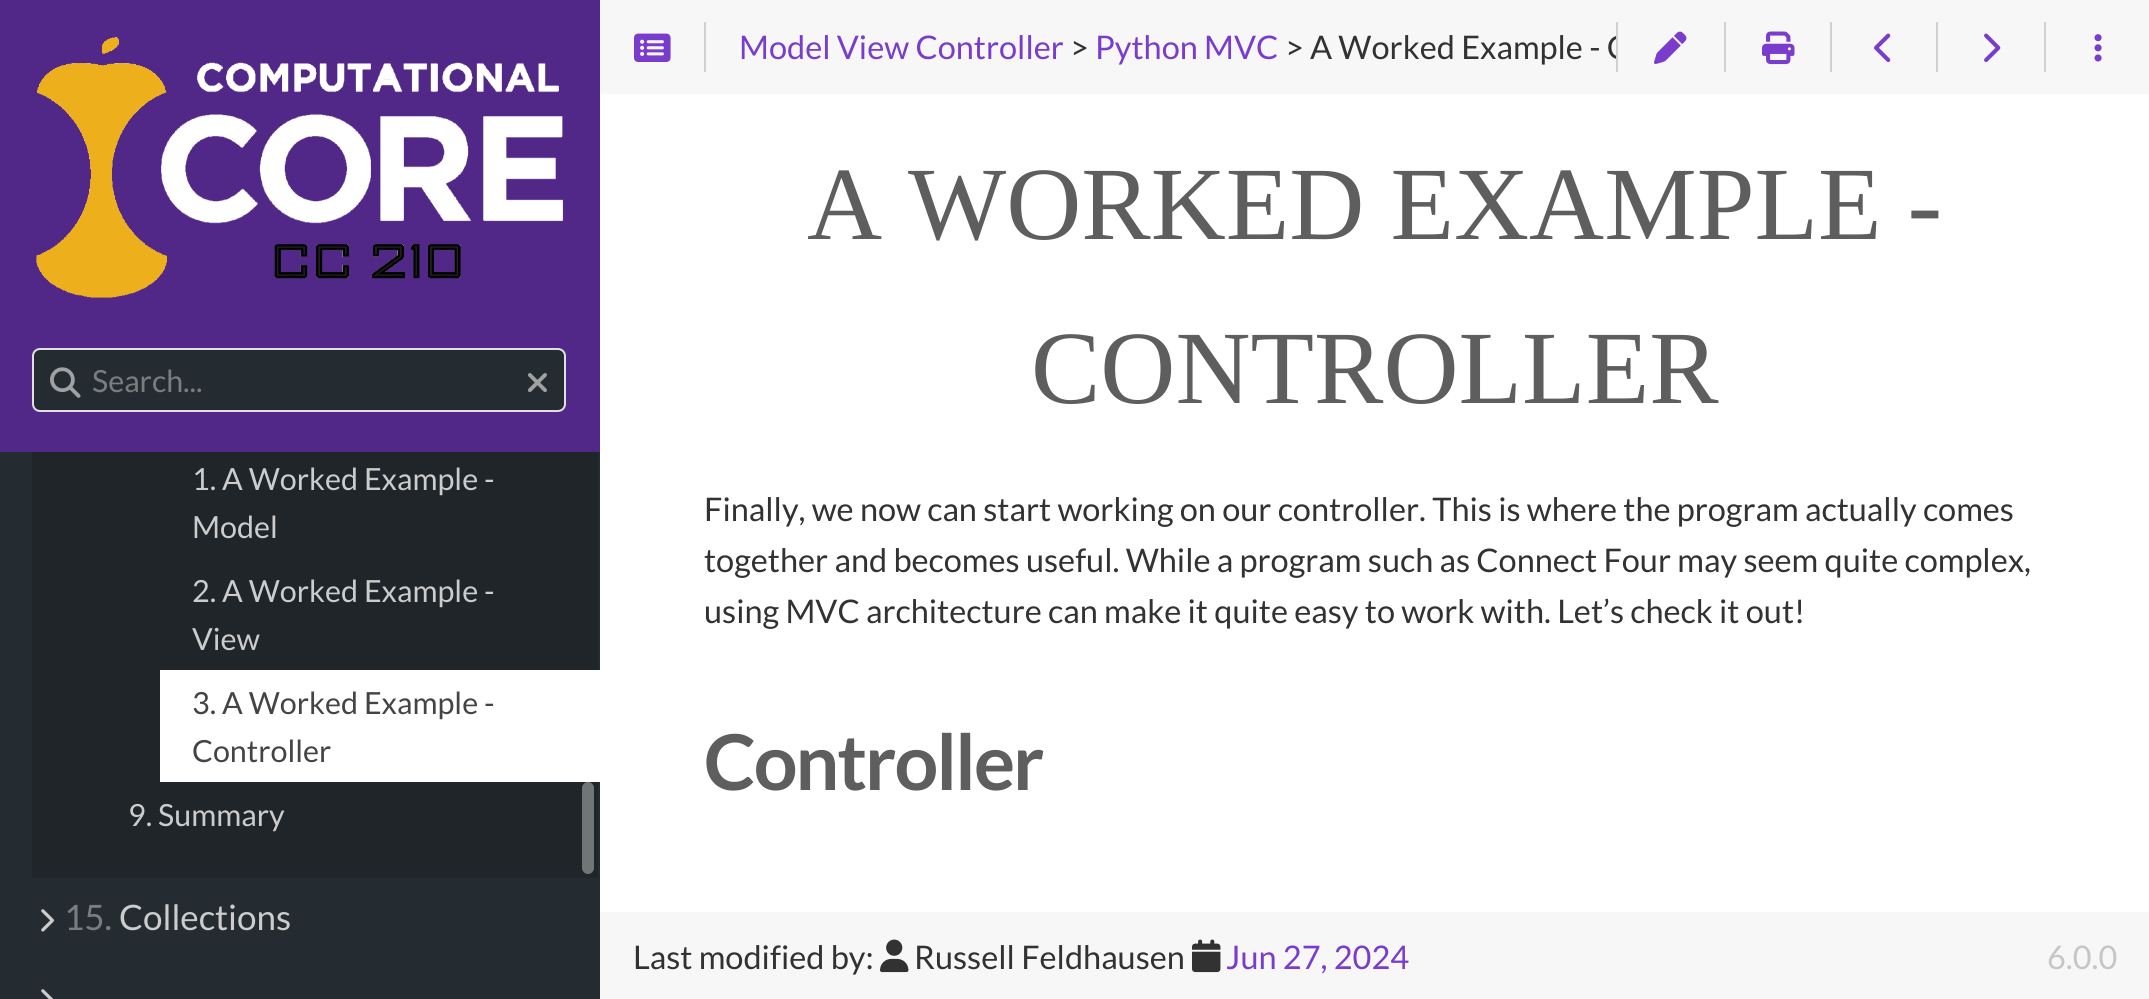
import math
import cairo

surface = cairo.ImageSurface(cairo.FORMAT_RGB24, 2149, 999)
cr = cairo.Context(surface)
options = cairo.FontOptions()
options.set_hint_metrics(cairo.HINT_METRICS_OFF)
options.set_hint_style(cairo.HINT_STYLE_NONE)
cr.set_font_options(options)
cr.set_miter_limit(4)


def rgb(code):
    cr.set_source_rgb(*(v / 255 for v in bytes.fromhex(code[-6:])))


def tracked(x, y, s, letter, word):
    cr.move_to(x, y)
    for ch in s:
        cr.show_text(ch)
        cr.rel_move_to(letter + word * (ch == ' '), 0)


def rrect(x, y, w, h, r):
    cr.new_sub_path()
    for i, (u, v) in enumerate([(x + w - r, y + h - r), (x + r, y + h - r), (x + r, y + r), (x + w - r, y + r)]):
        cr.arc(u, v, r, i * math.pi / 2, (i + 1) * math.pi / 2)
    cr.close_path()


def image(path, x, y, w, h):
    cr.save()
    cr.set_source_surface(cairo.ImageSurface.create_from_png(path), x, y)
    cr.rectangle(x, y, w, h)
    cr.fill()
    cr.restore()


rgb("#ffffff")
cr.paint()
rgb("#252c31")
cr.rectangle(0, 452, 600, 547)
cr.fill()
rgb("#512888")
cr.rectangle(0, 0, 600, 452)
cr.fill()
image("img/1.png", 36, 37, 528, 261)
rgb("#252c31")
rrect(33, 349, 532, 62, 7)
cr.fill_preserve()
rgb("#e0e0e0")
cr.stroke()
image("img/2.png", 50, 367, 31, 31)
image("img/3.png", 527, 373, 20, 20)
rgb("#1f2529")
cr.rectangle(32, 452, 566, 426)
cr.fill()
rgb("#ffffff")
cr.rectangle(160, 670, 440, 112)
cr.fill()
image("img/4.png", 41, 909, 13, 23)
image("img/5.png", 41, 989, 13, 10)
rgb("#727576")
rrect(582, 782, 12, 92, 6)
cr.fill()
rgb("#f7f7f7")
cr.rectangle(600, 0, 1549, 94)
cr.fill()
rgb("#d1d1d1")
cr.rectangle(704, 22, 2, 50)
cr.fill()
image("img/6.png", 634, 33, 37, 29)
cr.rectangle(1616, 22, 2, 50)
cr.fill()
image("img/7.png", 1654, 31, 33, 33)
cr.rectangle(1724, 22, 2, 50)
cr.fill()
image("img/8.png", 1762, 31, 33, 34)
cr.rectangle(1830, 22, 2, 50)
cr.fill()
image("img/9.png", 1874, 33, 17, 29)
cr.rectangle(1936, 22, 2, 50)
cr.fill()
image("img/10.png", 1984, 33, 17, 29)
cr.rectangle(2044, 22, 2, 50)
cr.fill()
image("img/11.png", 2094, 34, 8, 28)
rgb("#f7f7f7")
cr.rectangle(600, 912, 1549, 87)
cr.fill()
image("img/12.png", 880, 939, 29, 34)
image("img/13.png", 1192, 939, 29, 34)
cr.select_font_face("Lato")
cr.set_font_size(30.5)
rgb("#797d80")
cr.move_to(92, 392)
cr.show_text("Search...")
rgb("#cccccc")
for x, y, s in [
    (192, 490, "1. A Worked Example -"),
    (192, 538, "Model"),
    (192, 602, "2. A Worked Example -"),
    (192, 650, "View"),
]:
    cr.move_to(x, y)
    cr.show_text(s)
rgb("#444444")
cr.move_to(192, 714)
cr.show_text("3. A Worked Example -")
cr.move_to(192, 762)
cr.show_text("Controller")
rgb("#cccccc")
cr.move_to(128, 826)
cr.show_text("9. Summary")
cr.set_font_size(35)
rgb("#797d80")
cr.move_to(64, 930)
cr.show_text("15.")
rgb("#cccccc")
cr.move_to(119, 930)
cr.show_text("Collections")
cr.set_font_size(32.5)
rgb("#793ccc")
cr.move_to(739, 59)
cr.show_text("Model View Controller")
rgb("#323232")
cr.move_to(1070, 59)
cr.show_text(">")
rgb("#793ccc")
cr.move_to(1095, 59)
cr.show_text("Python MVC")
rgb("#323232")
cr.move_to(1285, 59)
cr.show_text(">")
cr.save()
cr.rectangle(706, 22, 910, 50)
cr.clip()
cr.move_to(1310, 59)
cr.show_text("A Worked Example - C")
cr.restore()
cr.select_font_face("Liberation Serif")
cr.set_font_size(104)
rgb("#5e5e5e")
cr.move_to(807, 239)
cr.show_text("A WORKED EXAMPLE -")
cr.move_to(1031, 403)
cr.show_text("CONTROLLER")
cr.select_font_face("Lato")
cr.set_font_size(32.5)
rgb("#323232")
for x, y, s in [
    (704, 521, "Finally, we now can start working on our controller. This is where the program actually comes"),
    (704, 572, "together and becomes useful. While a program such as Connect Four may seem quite complex,"),
    (704, 623, "using MVC architecture can make it quite easy to work with. Let’s check it out!"),
]:
    cr.move_to(x, y)
    cr.show_text(s)
cr.select_font_face("Lato", cairo.FONT_SLANT_NORMAL, cairo.FONT_WEIGHT_BOLD)
cr.set_font_size(77)
rgb("#5e5e5e")
tracked(704, 790, "Controller", -2, 0)
cr.select_font_face("Lato")
cr.set_font_size(32.5)
rgb("#323232")
cr.move_to(633, 969)
cr.show_text("Last modified by:")
cr.move_to(914, 969)
cr.show_text("Russell Feldhausen")
rgb("#793ccc")
cr.move_to(1226, 969)
cr.show_text("Jun 27, 2024")
rgb("#c6c6c6")
cr.move_to(2047, 969)
cr.show_text("6.0.0")
surface.write_to_png("page.png")
